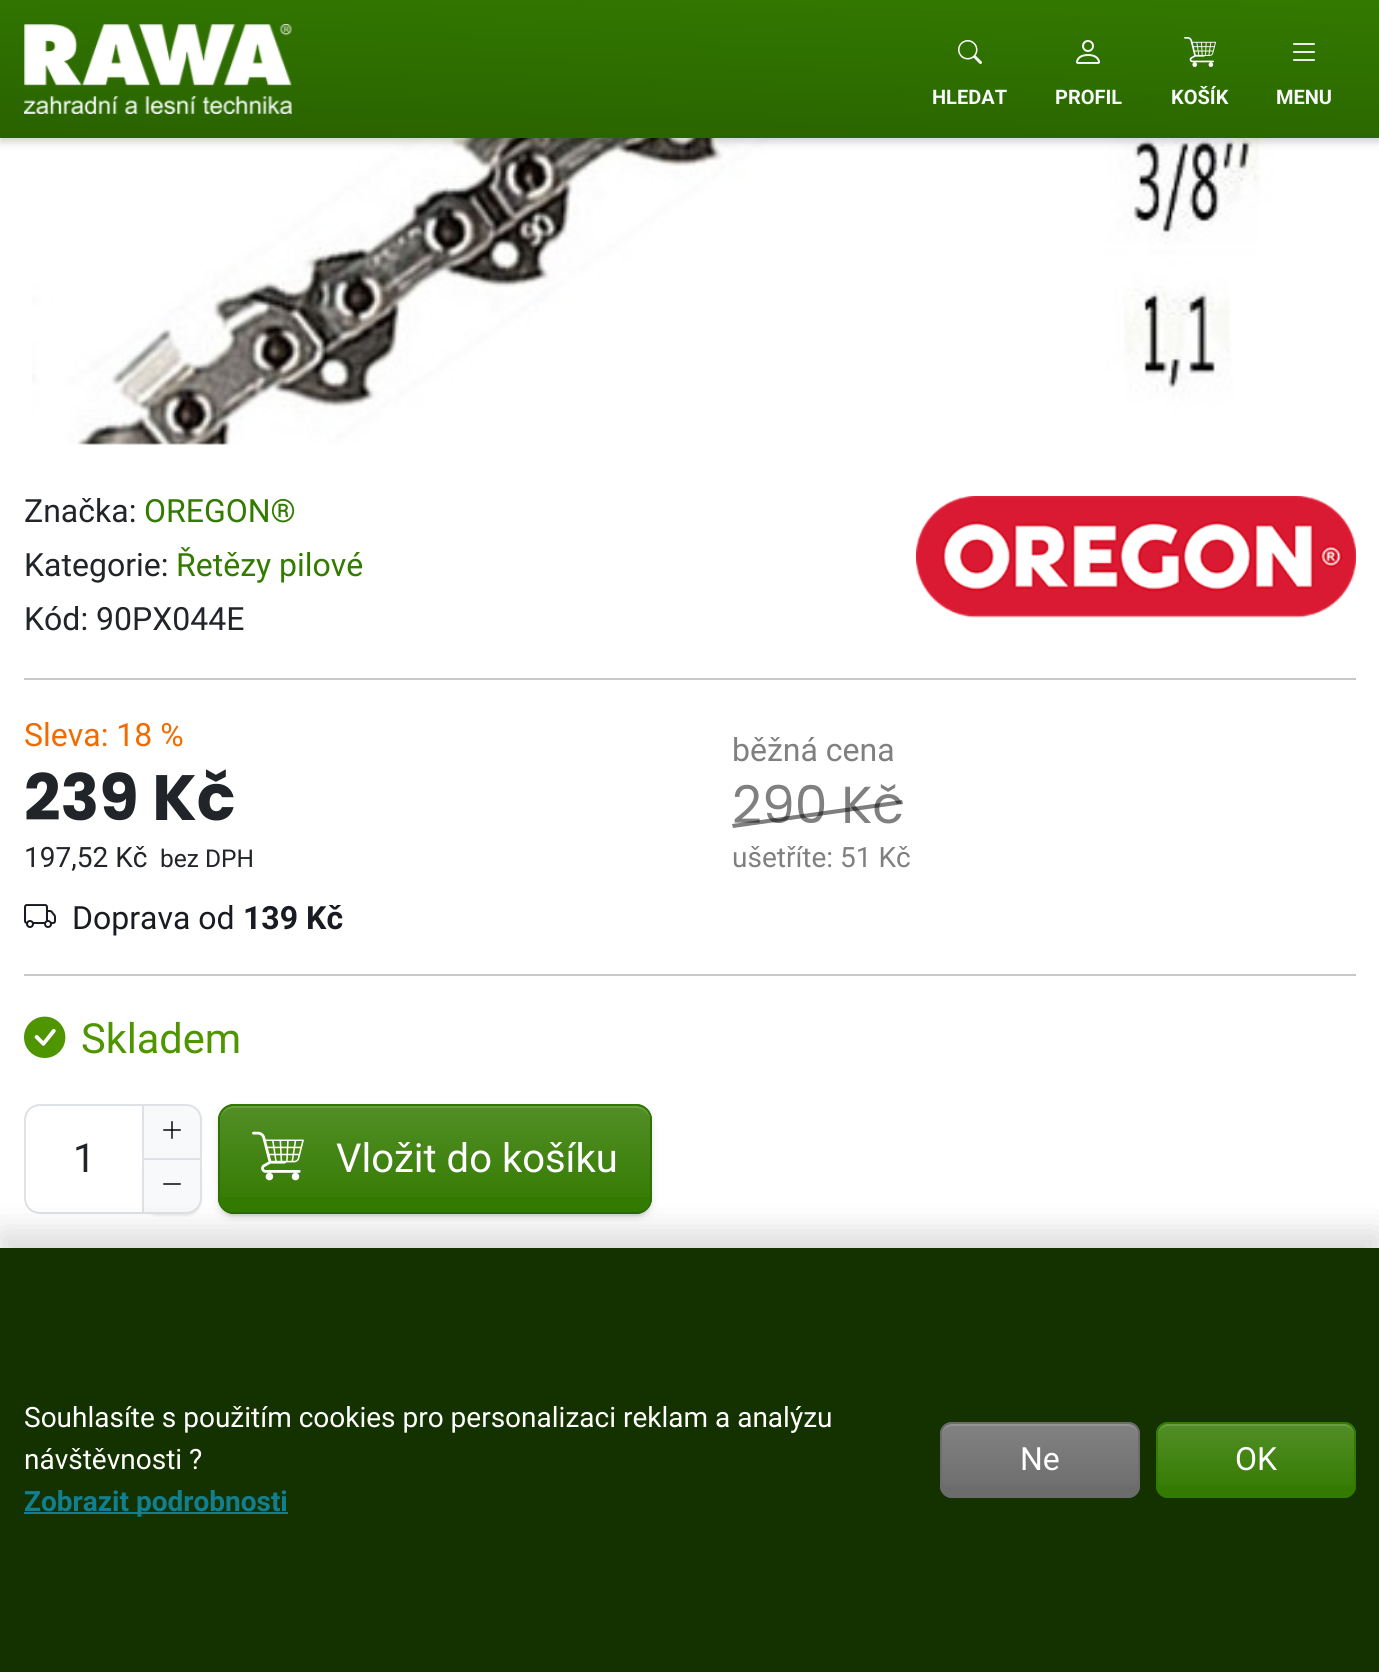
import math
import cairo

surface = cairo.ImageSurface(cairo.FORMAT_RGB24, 1379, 1672)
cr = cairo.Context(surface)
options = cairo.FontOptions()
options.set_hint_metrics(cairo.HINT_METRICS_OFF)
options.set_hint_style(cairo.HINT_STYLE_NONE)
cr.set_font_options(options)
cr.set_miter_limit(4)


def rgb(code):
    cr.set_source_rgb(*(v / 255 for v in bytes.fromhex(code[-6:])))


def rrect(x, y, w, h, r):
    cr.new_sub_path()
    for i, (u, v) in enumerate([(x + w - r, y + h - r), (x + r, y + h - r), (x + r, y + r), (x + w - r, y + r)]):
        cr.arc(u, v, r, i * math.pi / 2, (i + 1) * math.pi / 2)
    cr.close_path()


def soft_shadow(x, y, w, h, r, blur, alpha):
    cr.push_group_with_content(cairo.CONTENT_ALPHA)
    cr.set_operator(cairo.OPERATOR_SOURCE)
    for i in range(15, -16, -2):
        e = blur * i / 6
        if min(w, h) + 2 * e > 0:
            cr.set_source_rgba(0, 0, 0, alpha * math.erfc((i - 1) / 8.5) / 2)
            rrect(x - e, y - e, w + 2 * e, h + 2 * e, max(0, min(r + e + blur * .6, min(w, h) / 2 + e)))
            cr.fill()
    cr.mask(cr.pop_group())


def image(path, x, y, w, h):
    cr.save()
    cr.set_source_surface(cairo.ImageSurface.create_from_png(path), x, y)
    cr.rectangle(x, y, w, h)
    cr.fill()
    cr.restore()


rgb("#ffffff")
cr.paint()
image("img/6.png", 32, 138, 1263, 307)
rgb("#000000")
soft_shadow(0, 4, 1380, 138, 0, 4, 0.18)
gradient = cairo.LinearGradient(687, 162, 693, -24)
gradient.add_color_stop_rgba(0, 0.161, 0.384, 0, 1)
gradient.add_color_stop_rgba(1, 0.2, 0.478, 0, 1)
cr.set_source(gradient)
cr.rectangle(0, 0, 1379, 138)
cr.fill()
image("img/1.png", 24, 24, 268, 90)
image("img/2.png", 958, 40, 24, 24)
image("img/3.png", 1076, 40, 24, 24)
image("img/4.png", 1184, 37, 32, 30)
image("img/5.png", 1293, 43, 22, 18)
image("img/7.png", 916, 496, 440, 122)
rgb("#c8c9ca")
cr.rectangle(24, 678, 1332, 2)
cr.fill()
image("img/8.png", 24, 904, 32, 24)
cr.rectangle(24, 974, 1332, 2)
cr.fill()
image("img/9.png", 24, 1016, 42, 42)
cr.new_path()
cr.move_to(40, 1105)
cr.line_to(143, 1105)
cr.line_to(143, 1213)
cr.line_to(40, 1213)
cr.curve_to(31.5, 1213, 25, 1206.5, 25, 1198)
cr.line_to(25, 1120)
cr.curve_to(25, 1111.5, 31.5, 1105, 40, 1105)
cr.close_path()
rgb("#dee2e6")
cr.stroke()
rgb("#000000")
soft_shadow(142, 1106, 60, 56, 16, 1, 0.07)
rgb("#f8f9fa")
cr.new_path()
cr.move_to(143, 1105)
cr.line_to(186, 1105)
cr.curve_to(194.5, 1105, 201, 1111.5, 201, 1120)
cr.line_to(201, 1159)
cr.line_to(143, 1159)
cr.close_path()
cr.fill_preserve()
rgb("#dee2e6")
cr.stroke()
image("img/10.png", 163, 1121, 18, 18)
rgb("#000000")
soft_shadow(142, 1160, 60, 56, 16, 1, 0.07)
rgb("#f8f9fa")
cr.new_path()
cr.move_to(143, 1159)
cr.line_to(201, 1159)
cr.line_to(201, 1198)
cr.curve_to(201, 1206.5, 194.5, 1213, 186, 1213)
cr.line_to(143, 1213)
cr.close_path()
cr.fill_preserve()
rgb("#dee2e6")
cr.stroke()
image("img/11.png", 163, 1183, 18, 2)
rgb("#000000")
soft_shadow(218, 1106, 434, 110, 16, 1, 0.07)
rgb("#337a00")
rrect(218, 1104, 434, 110, 16)
cr.fill()
cr.save()
rrect(218, 1104, 434, 110, 16)
cr.clip()
gradient = cairo.LinearGradient(435, 1106, 435, 1212)
gradient.add_color_stop_rgba(0, 1, 1, 1, 0.15)
gradient.add_color_stop_rgba(1, 1, 1, 1, 0)
cr.set_source(gradient)
cr.rectangle(218, 1106, 434, 91)
cr.fill()
cr.restore()
cr.set_source_rgba(1, 1, 1, 0.15)
cr.new_path()
cr.move_to(234, 1108)
cr.line_to(636, 1108)
cr.curve_to(644, 1108, 650, 1114, 650, 1122)
cr.line_to(650, 1120)
cr.curve_to(650, 1112, 644, 1106, 636, 1106)
cr.line_to(234, 1106)
cr.curve_to(226, 1106, 220, 1112, 220, 1120)
cr.line_to(220, 1122)
cr.curve_to(220, 1114, 226, 1108, 234, 1108)
cr.close_path()
cr.fill()
rrect(219, 1105, 432, 108, 15)
rgb("#337a00")
cr.stroke()
cr.save()
cr.set_fill_rule(cairo.FILL_RULE_EVEN_ODD)
cr.new_path()
cr.move_to(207, 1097)
cr.line_to(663, 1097)
cr.line_to(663, 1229)
cr.line_to(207, 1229)
cr.close_path()
cr.move_to(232, 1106)
cr.line_to(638, 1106)
cr.curve_to(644.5, 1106, 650, 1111.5, 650, 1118)
cr.line_to(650, 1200)
cr.curve_to(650, 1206.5, 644.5, 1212, 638, 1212)
cr.line_to(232, 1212)
cr.curve_to(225.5, 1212, 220, 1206.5, 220, 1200)
cr.line_to(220, 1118)
cr.curve_to(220, 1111.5, 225.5, 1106, 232, 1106)
cr.close_path()
cr.clip()
rgb("#000000")
soft_shadow(220, 1110, 430, 106, 12, 4, 0.18)
cr.restore()
image("img/12.png", 252, 1131, 52, 50)
rgb("#000000")
soft_shadow(0, 1232, 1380, 424, 0, 16, 0.15)
rgb("#143100")
cr.rectangle(0, 1248, 1379, 424)
cr.fill()
rgb("#127f91")
cr.rectangle(24, 1512, 264, 2)
cr.fill()
rgb("#6c6c6c")
rrect(940, 1422, 200, 76, 12)
cr.fill()
cr.save()
rrect(940, 1422, 200, 76, 12)
cr.clip()
gradient = cairo.LinearGradient(1040, 1424, 1040, 1496)
gradient.add_color_stop_rgba(0, 1, 1, 1, 0.15)
gradient.add_color_stop_rgba(1, 1, 1, 1, 0)
cr.set_source(gradient)
cr.rectangle(940, 1424, 200, 62)
cr.fill()
cr.restore()
rgb("#949494")
cr.new_path()
cr.move_to(952, 1426)
cr.line_to(1128, 1426)
cr.curve_to(1134, 1426, 1138, 1430, 1138, 1436)
cr.line_to(1138, 1434)
cr.curve_to(1138, 1428, 1134, 1424, 1128, 1424)
cr.line_to(952, 1424)
cr.curve_to(946, 1424, 942, 1428, 942, 1434)
cr.line_to(942, 1436)
cr.curve_to(942, 1430, 946, 1426, 952, 1426)
cr.close_path()
cr.fill()
rrect(941, 1423, 198, 74, 11)
rgb("#6c6c6c")
cr.stroke()
rgb("#337a00")
rrect(1156, 1422, 200, 76, 12)
cr.fill()
cr.save()
rrect(1156, 1422, 200, 76, 12)
cr.clip()
gradient = cairo.LinearGradient(1256, 1424, 1256, 1496)
gradient.add_color_stop_rgba(0, 1, 1, 1, 0.15)
gradient.add_color_stop_rgba(1, 1, 1, 1, 0)
cr.set_source(gradient)
cr.rectangle(1156, 1424, 200, 62)
cr.fill()
cr.restore()
cr.set_source_rgba(1, 1, 1, 0.15)
cr.new_path()
cr.move_to(1168, 1426)
cr.line_to(1344, 1426)
cr.curve_to(1350, 1426, 1354, 1430, 1354, 1436)
cr.line_to(1354, 1434)
cr.curve_to(1354, 1428, 1350, 1424, 1344, 1424)
cr.line_to(1168, 1424)
cr.curve_to(1162, 1424, 1158, 1428, 1158, 1434)
cr.line_to(1158, 1436)
cr.curve_to(1158, 1430, 1162, 1426, 1168, 1426)
cr.close_path()
cr.fill()
rrect(1157, 1423, 198, 74, 11)
rgb("#337a00")
cr.stroke()
cr.select_font_face("Roboto", cairo.FONT_SLANT_NORMAL, cairo.FONT_WEIGHT_BOLD)
cr.set_font_size(20)
rgb("#f8f9fa")
for x, y, s in [
    (932, 104, "HLEDAT"),
    (1055, 104, "PROFIL"),
    (1171, 104, "KOŠÍK"),
    (1276, 104, "MENU"),
]:
    cr.move_to(x, y)
    cr.show_text(s)
cr.select_font_face("Roboto")
cr.set_font_size(32)
rgb("#212529")
cr.move_to(24, 522)
cr.show_text("Značka:")
rgb("#337a00")
cr.move_to(144, 522)
cr.show_text("OREGON®")
rgb("#212529")
cr.move_to(24, 576)
cr.show_text("Kategorie:")
rgb("#337a00")
cr.move_to(176, 576)
cr.show_text("Řetězy pilové")
rgb("#212529")
cr.move_to(24, 630)
cr.show_text("Kód: 90PX044E")
rgb("#f36b00")
cr.move_to(24, 746)
cr.show_text("Sleva: 18 %")
cr.select_font_face("Poppins", cairo.FONT_SLANT_NORMAL, cairo.FONT_WEIGHT_BOLD)
cr.set_font_size(64)
rgb("#212529")
cr.move_to(24, 820)
cr.show_text("239 Kč")
cr.select_font_face("Roboto")
cr.set_font_size(28)
cr.move_to(24, 867)
cr.show_text("197,52 Kč")
cr.set_font_size(24.5)
cr.move_to(160, 867)
cr.show_text("bez DPH")
cr.set_font_size(32)
rgb("#808080")
cr.move_to(732, 761)
cr.show_text("běžná cena")
cr.select_font_face("Poppins")
cr.set_font_size(52)
cr.move_to(732, 823)
cr.show_text("290 Kč")
cr.set_source_rgba(0, 0, 0, 0.5)
cr.new_path()
cr.move_to(732, 824)
cr.line_to(902, 800)
cr.line_to(903, 804)
cr.line_to(733, 828)
cr.close_path()
cr.fill()
cr.select_font_face("Roboto")
cr.set_font_size(28)
rgb("#808080")
cr.move_to(732, 867)
cr.show_text("ušetříte: 51 Kč")
cr.set_font_size(32)
rgb("#191b22")
cr.move_to(72, 929)
cr.show_text("Doprava od")
cr.select_font_face("Roboto", cairo.FONT_SLANT_NORMAL, cairo.FONT_WEIGHT_BOLD)
cr.move_to(243, 929)
cr.show_text("139 Kč")
cr.select_font_face("Roboto")
cr.set_font_size(41.5)
rgb("#4e9500")
cr.move_to(81, 1053)
cr.show_text("Skladem")
cr.set_font_size(40)
rgb("#212529")
cr.move_to(73, 1172)
cr.show_text("1")
rgb("#ffffff")
cr.move_to(336, 1172)
cr.show_text("Vložit do košíku")
cr.set_font_size(28)
cr.move_to(24, 1427)
cr.show_text("Souhlasíte s použitím cookies pro personalizaci reklam a analýzu")
cr.move_to(24, 1469)
cr.show_text("návštěvnosti ?")
cr.select_font_face("Roboto", cairo.FONT_SLANT_NORMAL, cairo.FONT_WEIGHT_BOLD)
rgb("#127f91")
cr.move_to(24, 1511)
cr.show_text("Zobrazit podrobnosti")
cr.select_font_face("Roboto")
cr.set_font_size(32)
rgb("#ffffff")
cr.move_to(1020, 1470)
cr.show_text("Ne")
cr.move_to(1235, 1470)
cr.show_text("OK")
surface.write_to_png("page.png")
